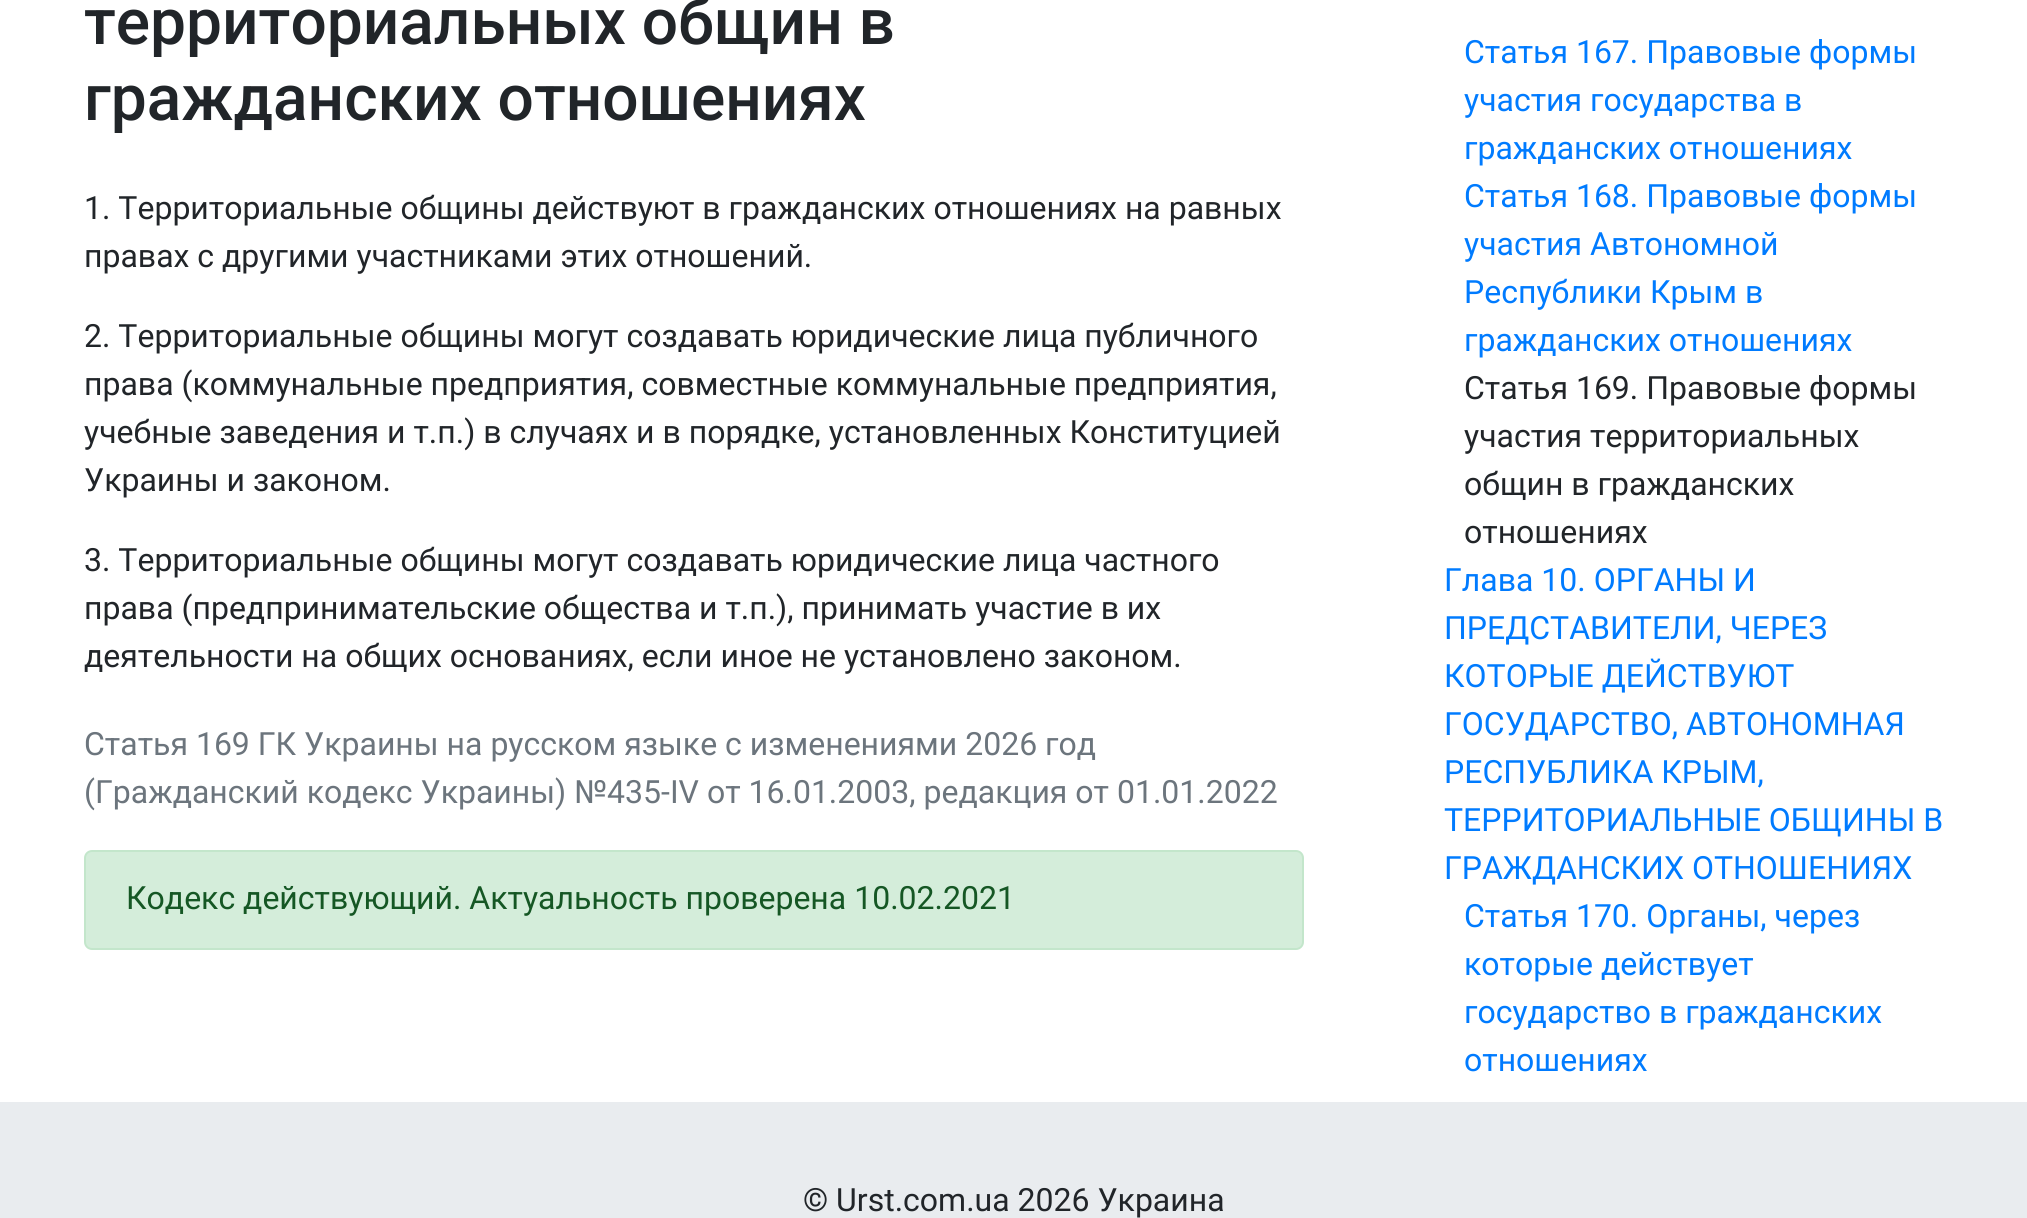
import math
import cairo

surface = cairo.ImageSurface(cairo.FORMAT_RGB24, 2027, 1218)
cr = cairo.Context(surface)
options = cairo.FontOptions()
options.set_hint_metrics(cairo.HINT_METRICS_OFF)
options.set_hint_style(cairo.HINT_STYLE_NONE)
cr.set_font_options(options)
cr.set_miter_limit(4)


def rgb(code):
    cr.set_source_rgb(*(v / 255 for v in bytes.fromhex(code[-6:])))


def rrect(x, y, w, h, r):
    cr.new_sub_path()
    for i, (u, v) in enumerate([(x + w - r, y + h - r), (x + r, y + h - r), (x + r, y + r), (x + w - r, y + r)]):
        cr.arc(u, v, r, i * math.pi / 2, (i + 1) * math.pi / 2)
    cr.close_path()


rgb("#ffffff")
cr.paint()
rgb("#d4edda")
rrect(85, 851, 1218, 98, 7)
cr.fill_preserve()
rgb("#c3e6cb")
cr.stroke()
rgb("#e9ecef")
cr.rectangle(0, 1102, 2027, 116)
cr.fill()
cr.select_font_face("Roboto Medium")
cr.set_font_size(64)
rgb("#212529")
cr.move_to(84, 44)
cr.show_text("территориальных общин в")
cr.move_to(84, 120)
cr.show_text("гражданских отношениях")
cr.select_font_face("Roboto")
cr.set_font_size(32)
for x, y, s in [
    (84, 219, "1. Территориальные общины действуют в гражданских отношениях на равных"),
    (84, 267, "правах с другими участниками этих отношений."),
    (84, 347, "2. Территориальные общины могут создавать юридические лица публичного"),
    (84, 395, "права (коммунальные предприятия, совместные коммунальные предприятия,"),
    (84, 443, "учебные заведения и т.п.) в случаях и в порядке, установленных Конституцией"),
    (84, 491, "Украины и законом."),
    (84, 571, "3. Территориальные общины могут создавать юридические лица частного"),
    (84, 619, "права (предпринимательские общества и т.п.), принимать участие в их"),
    (84, 667, "деятельности на общих основаниях, если иное не установлено законом."),
]:
    cr.move_to(x, y)
    cr.show_text(s)
rgb("#6c757d")
cr.move_to(84, 755)
cr.show_text("Статья 169 ГК Украины на русском языке с изменениями 2026 год")
cr.move_to(84, 803)
cr.show_text("(Гражданский кодекс Украины) №435-IV от 16.01.2003, редакция от 01.01.2022")
rgb("#155724")
cr.move_to(126, 909)
cr.show_text("Кодекс действующий. Актуальность проверена 10.02.2021")
rgb("#007bff")
for x, y, s in [
    (1464, 63, "Статья 167. Правовые формы"),
    (1464, 111, "участия государства в"),
    (1464, 159, "гражданских отношениях"),
    (1464, 207, "Статья 168. Правовые формы"),
    (1464, 255, "участия Автономной"),
    (1464, 303, "Республики Крым в"),
    (1464, 351, "гражданских отношениях"),
]:
    cr.move_to(x, y)
    cr.show_text(s)
rgb("#212529")
for x, y, s in [
    (1464, 399, "Статья 169. Правовые формы"),
    (1464, 447, "участия территориальных"),
    (1464, 495, "общин в гражданских"),
    (1464, 543, "отношениях"),
]:
    cr.move_to(x, y)
    cr.show_text(s)
rgb("#007bff")
for x, y, s in [
    (1444, 591, "Глава 10. ОРГАНЫ И"),
    (1444, 639, "ПРЕДСТАВИТЕЛИ, ЧЕРЕЗ"),
    (1444, 687, "КОТОРЫЕ ДЕЙСТВУЮТ"),
    (1444, 735, "ГОСУДАРСТВО, АВТОНОМНАЯ"),
    (1444, 783, "РЕСПУБЛИКА КРЫМ,"),
    (1444, 831, "ТЕРРИТОРИАЛЬНЫЕ ОБЩИНЫ В"),
    (1444, 879, "ГРАЖДАНСКИХ ОТНОШЕНИЯХ"),
    (1464, 927, "Статья 170. Органы, через"),
    (1464, 975, "которые действует"),
    (1464, 1023, "государство в гражданских"),
    (1464, 1071, "отношениях"),
]:
    cr.move_to(x, y)
    cr.show_text(s)
rgb("#212529")
cr.move_to(803, 1211)
cr.show_text("© Urst.com.ua 2026 Украина")
surface.write_to_png("page.png")
